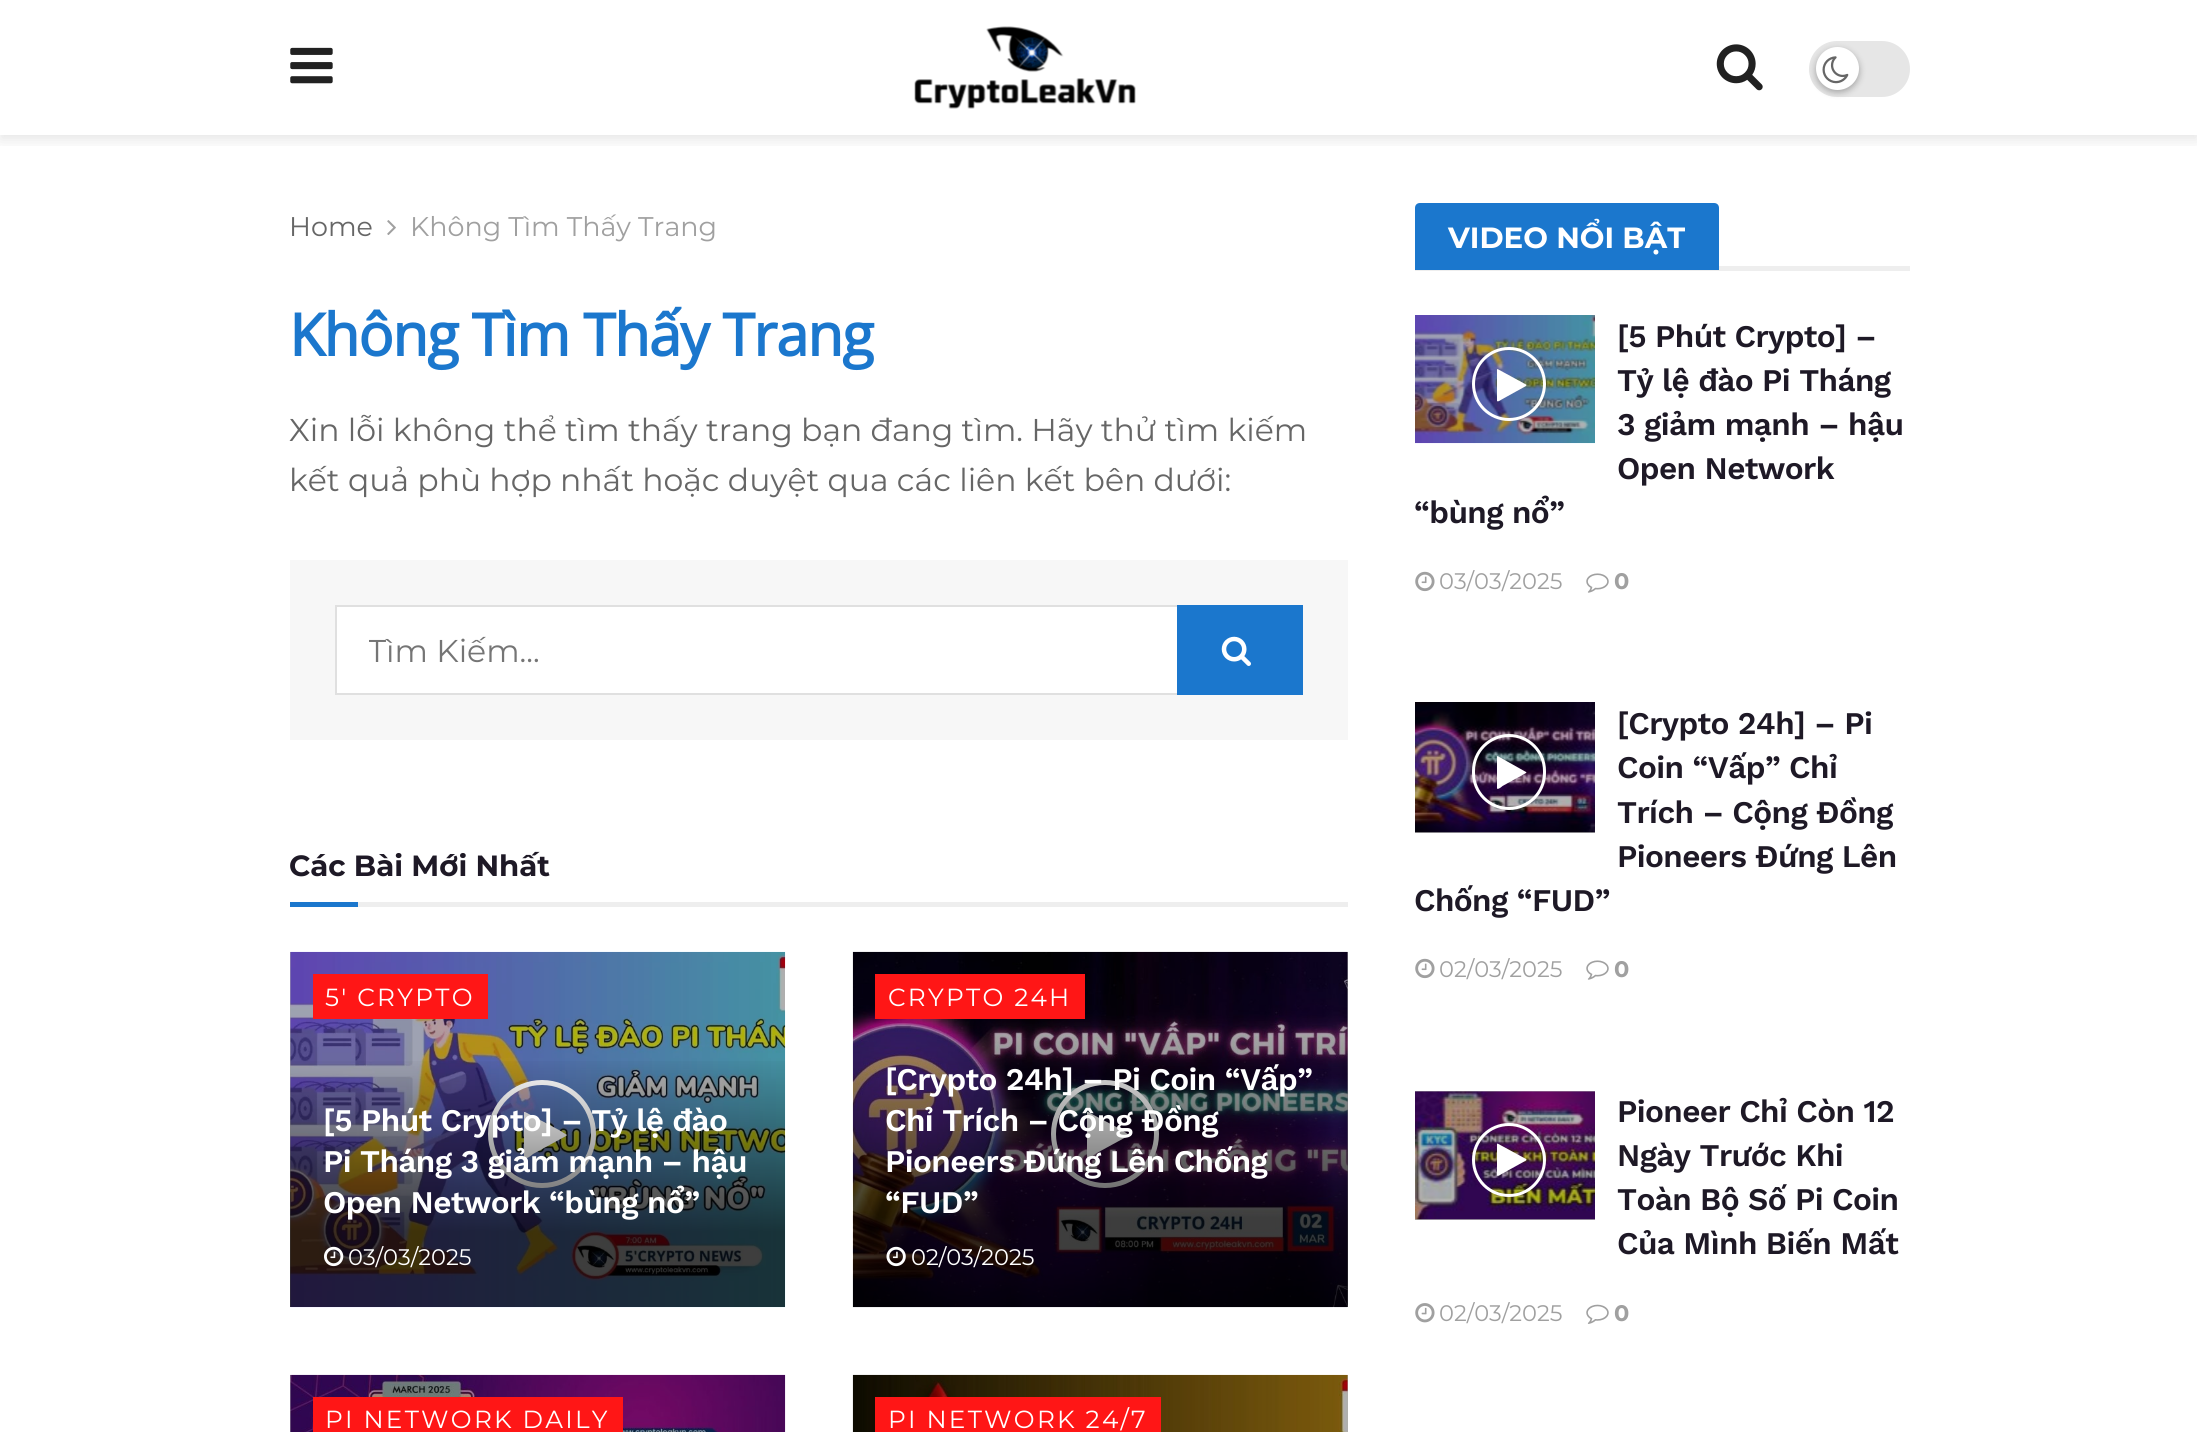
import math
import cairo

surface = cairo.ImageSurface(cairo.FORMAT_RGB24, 2197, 1432)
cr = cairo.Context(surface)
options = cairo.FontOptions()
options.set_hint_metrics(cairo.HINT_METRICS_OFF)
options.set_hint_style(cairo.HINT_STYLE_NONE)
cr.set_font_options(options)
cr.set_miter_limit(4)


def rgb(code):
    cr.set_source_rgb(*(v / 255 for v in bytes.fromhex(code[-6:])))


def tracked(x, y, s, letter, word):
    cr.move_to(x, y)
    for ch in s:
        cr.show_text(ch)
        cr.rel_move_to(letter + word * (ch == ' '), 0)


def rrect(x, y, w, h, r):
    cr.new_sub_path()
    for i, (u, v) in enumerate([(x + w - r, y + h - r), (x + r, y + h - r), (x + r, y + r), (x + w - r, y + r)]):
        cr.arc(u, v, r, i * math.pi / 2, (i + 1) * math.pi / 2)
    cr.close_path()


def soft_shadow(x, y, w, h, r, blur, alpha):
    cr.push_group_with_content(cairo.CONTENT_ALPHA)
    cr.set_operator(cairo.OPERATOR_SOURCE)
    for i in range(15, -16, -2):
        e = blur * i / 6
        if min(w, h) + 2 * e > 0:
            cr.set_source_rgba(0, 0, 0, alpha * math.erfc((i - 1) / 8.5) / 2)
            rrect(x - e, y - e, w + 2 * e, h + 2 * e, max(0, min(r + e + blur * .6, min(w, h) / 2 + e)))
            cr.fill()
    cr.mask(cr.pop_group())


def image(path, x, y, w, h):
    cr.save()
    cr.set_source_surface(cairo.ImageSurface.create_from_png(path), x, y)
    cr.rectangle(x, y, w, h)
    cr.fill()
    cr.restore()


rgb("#ffffff")
cr.paint()
cr.save()
cr.rectangle(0, 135, 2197, 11)
cr.clip()
rgb("#000000")
soft_shadow(0, 5, 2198, 135, 0, 7, 0.1)
cr.restore()
image("img/1.png", 290, 47, 43, 37)
image("img/2.png", 914, 26, 222, 83)
image("img/3.png", 1716, 44, 47, 47)
rgb("#e6e6e6")
rrect(1809, 41, 101, 56, 28)
cr.fill()
rgb("#000000")
soft_shadow(1816, 50, 43, 42, 21, 3.5, 0.3)
rgb("#ffffff")
cr.arc(1837.5, 68.5, 21.5, 0, 2 * math.pi)
cr.fill()
image("img/4.png", 1822, 56, 27, 28)
image("img/5.png", 387, 220, 9, 15)
rgb("#f7f7f7")
cr.rectangle(290, 560, 1058, 180)
cr.fill()
rgb("#ffffff")
cr.rectangle(337, 607, 840, 86)
cr.fill()
cr.rectangle(336, 606, 966, 88)
rgb("#e0e0e0")
cr.stroke()
rgb("#1b77cd")
cr.rectangle(1177, 605, 126, 90)
cr.fill()
image("img/6.png", 1221, 636, 30, 30)
for x, y, w, h, color in [
    (358, 902, 990, 5, "#eeeeee"),
    (290, 902, 68, 5, "#1b77cd"),
    (290, 952, 1, 355, "#adadad"),
]:
    rgb(color)
    cr.rectangle(x, y, w, h)
    cr.fill()
image("img/7.png", 290, 951, 496, 357)
rgb("#ff1616")
cr.rectangle(313, 974, 175, 45)
cr.fill()
cr.arc(542, 1134, 51.5, 0, 2 * math.pi)
rgb("#ffffff")
cr.set_line_width(5)
cr.stroke()
cr.new_path()
cr.move_to(566, 1136)
cr.line_to(533, 1154)
cr.curve_to(532, 1155, 526, 1160, 524, 1158)
cr.line_to(524, 1112)
cr.line_to(525, 1112)
cr.line_to(559, 1130)
cr.line_to(567, 1135)
cr.close_path()
cr.fill()
gradient = cairo.LinearGradient(538, 1055, 538, 1307)
gradient.add_color_stop_rgba(0, 0, 0, 0, 0)
gradient.add_color_stop_rgba(0.7, 0, 0, 0, 0.65)
cr.set_source(gradient)
cr.rectangle(290, 1061, 495, 246)
cr.fill()
image("img/8.png", 324, 1246, 20, 21)
rgb("#adadad")
cr.rectangle(1347, 952, 1, 355)
cr.fill()
image("img/9.png", 852, 951, 496, 357)
rgb("#ff1616")
cr.rectangle(875, 974, 210, 45)
cr.fill()
cr.arc(1105, 1134, 51.5, 0, 2 * math.pi)
rgb("#ffffff")
cr.stroke()
cr.new_path()
cr.move_to(1128, 1136)
cr.line_to(1095, 1154)
cr.curve_to(1094, 1155, 1088, 1160, 1087, 1158)
cr.line_to(1087, 1112)
cr.line_to(1088, 1112)
cr.line_to(1122, 1130)
cr.line_to(1129, 1135)
cr.close_path()
cr.fill()
gradient = cairo.LinearGradient(1100, 1013, 1100, 1307)
gradient.add_color_stop_rgba(0, 0, 0, 0, 0)
gradient.add_color_stop_rgba(0.7, 0, 0, 0, 0.65)
cr.set_source(gradient)
cr.rectangle(853, 1020, 495, 287)
cr.fill()
image("img/10.png", 886, 1246, 20, 21)
rgb("#adadad")
cr.rectangle(290, 1375, 1, 57)
cr.fill()
image("img/11.png", 290, 1374, 496, 58)
rgb("#ff1616")
cr.rectangle(313, 1397, 310, 35)
cr.fill()
rgb("#adadad")
cr.rectangle(1347, 1375, 1, 57)
cr.fill()
image("img/12.png", 852, 1374, 496, 58)
rgb("#ff1616")
cr.rectangle(875, 1397, 286, 35)
cr.fill()
rgb("#eeeeee")
cr.rectangle(1415, 266, 495, 5)
cr.fill()
rgb("#1b77cd")
cr.new_path()
cr.move_to(1420, 203)
cr.line_to(1714, 203)
cr.curve_to(1717, 203, 1719, 205, 1719, 208)
cr.line_to(1719, 270)
cr.line_to(1415, 270)
cr.line_to(1415, 208)
cr.curve_to(1415, 205, 1417, 203, 1420, 203)
cr.close_path()
cr.fill()
image("img/13.png", 1415, 315, 180, 129)
cr.arc(1509, 384, 35.5, 0, 2 * math.pi)
rgb("#ffffff")
cr.set_line_width(3)
cr.stroke()
cr.new_path()
cr.move_to(1526, 386)
cr.line_to(1502.5, 399)
cr.curve_to(1502, 399, 1498, 402.5, 1497, 401)
cr.line_to(1497, 369.5)
cr.line_to(1497.5, 369)
cr.line_to(1526, 384.5)
cr.line_to(1526.5, 385)
cr.close_path()
cr.fill()
image("img/14.png", 1415, 571, 20, 21)
image("img/15.png", 1586, 573, 23, 20)
rgb("#adadad")
cr.rectangle(1415, 832, 180, 1)
cr.fill()
image("img/16.png", 1415, 702, 180, 131)
rrect(1473.5, 735.5, 71, 73, 35.5)
rgb("#ffffff")
cr.stroke()
cr.new_path()
cr.move_to(1526, 773)
cr.line_to(1502.5, 786)
cr.curve_to(1502, 786.5, 1498, 790, 1497, 788.5)
cr.line_to(1497, 756.5)
cr.line_to(1497.5, 756)
cr.line_to(1526, 772)
cr.line_to(1526.5, 772.5)
cr.close_path()
cr.fill()
image("img/14.png", 1415, 958, 20, 21)
image("img/15.png", 1586, 960, 23, 20)
rgb("#adadad")
cr.rectangle(1415, 1091, 180, 129)
cr.fill()
image("img/17.png", 1415, 1091, 180, 129)
cr.arc(1509, 1160, 35.5, 0, 2 * math.pi)
rgb("#ffffff")
cr.stroke()
cr.new_path()
cr.move_to(1526, 1160.5)
cr.line_to(1502.5, 1173.5)
cr.curve_to(1502, 1173.5, 1498, 1177, 1497, 1175.5)
cr.line_to(1497, 1144)
cr.line_to(1497.5, 1143.5)
cr.line_to(1526, 1159)
cr.line_to(1526.5, 1159.5)
cr.close_path()
cr.fill()
image("img/18.png", 1415, 1303, 20, 20)
image("img/19.png", 1586, 1304, 23, 20)
cr.select_font_face("Montserrat")
cr.set_font_size(27)
rgb("#666666")
cr.move_to(289, 236)
cr.show_text("Home")
rgb("#a0a0a0")
cr.move_to(410, 236)
cr.show_text("Không Tìm Thấy Trang")
cr.select_font_face("Open Sans", cairo.FONT_SLANT_NORMAL, cairo.FONT_WEIGHT_BOLD)
cr.set_font_size(58.5)
rgb("#1b77cd")
tracked(289, 356, "Không Tìm Thấy Trang", -1.2, 0)
cr.select_font_face("Montserrat")
cr.set_font_size(31.5)
rgb("#666666")
cr.move_to(289, 441)
cr.show_text("Xin lỗi không thể tìm thấy trang bạn đang tìm. Hãy thử tìm kiếm")
cr.move_to(289, 491)
cr.show_text("kết quả phù hợp nhất hoặc duyệt qua các liên kết bên dưới:")
cr.save()
cr.rectangle(369, 630, 900, 41)
cr.clip()
rgb("#757575")
cr.move_to(368, 662)
cr.show_text("Tìm Kiếm...")
cr.restore()
cr.select_font_face("Montserrat", cairo.FONT_SLANT_NORMAL, cairo.FONT_WEIGHT_BOLD)
cr.set_font_size(29.25)
rgb("#1e1926")
cr.move_to(289, 876)
cr.show_text("Các Bài Mới Nhất")
cr.select_font_face("Montserrat")
cr.set_font_size(24.75)
rgb("#ffffff")
tracked(325, 1006, "5' CRYPTO", 2.25, 0)
cr.select_font_face("Work Sans SemiBold")
cr.set_font_size(31.5)
for x, y, s in [
    (323, 1131, "[5 Phút Crypto] – Tỷ lệ đào"),
    (323, 1172, "Pi Tháng 3 giảm mạnh – hậu"),
    (323, 1213, "Open Network “bùng nổ”"),
]:
    tracked(x, y, s, -0.6, 0)
cr.select_font_face("Montserrat")
cr.set_font_size(22.5)
cr.move_to(348, 1265)
cr.show_text("03/03/2025")
cr.set_font_size(24.75)
tracked(888, 1006, "CRYPTO 24H", 2.25, 0)
cr.select_font_face("Work Sans SemiBold")
cr.set_font_size(31.5)
for x, y, s in [
    (885, 1090, "[Crypto 24h] – Pi Coin “Vấp”"),
    (885, 1131, "Chỉ Trích – Cộng Đồng"),
    (885, 1172, "Pioneers Đứng Lên Chống"),
    (885, 1213, "“FUD”"),
]:
    tracked(x, y, s, -0.6, 0)
cr.select_font_face("Montserrat")
cr.set_font_size(22.5)
cr.move_to(911, 1265)
cr.show_text("02/03/2025")
cr.set_font_size(24.75)
tracked(325, 1428, "PI NETWORK DAILY", 2.25, 0)
tracked(888, 1428, "PI NETWORK 24/7", 2.25, 0)
cr.select_font_face("Montserrat", cairo.FONT_SLANT_NORMAL, cairo.FONT_WEIGHT_BOLD)
cr.set_font_size(29.25)
cr.move_to(1448, 248)
cr.show_text("VIDEO NỔI BẬT")
cr.select_font_face("Work Sans SemiBold")
cr.set_font_size(31.5)
rgb("#1e1926")
for x, y, s in [
    (1617, 347, "[5 Phút Crypto] –"),
    (1617, 391, "Tỷ lệ đào Pi Tháng"),
    (1617, 435, "3 giảm mạnh – hậu"),
    (1617, 479, "Open Network"),
    (1414, 523, "“bùng nổ”"),
]:
    tracked(x, y, s, -0.6, 0)
cr.select_font_face("Montserrat")
cr.set_font_size(22.5)
rgb("#a0a0a0")
cr.move_to(1439, 589)
cr.show_text("03/03/2025")
cr.select_font_face("Montserrat", cairo.FONT_SLANT_NORMAL, cairo.FONT_WEIGHT_BOLD)
cr.move_to(1614, 589)
cr.show_text("0")
cr.select_font_face("Work Sans SemiBold")
cr.set_font_size(31.5)
rgb("#1e1926")
for x, y, s in [
    (1617, 734, "[Crypto 24h] – Pi"),
    (1617, 778, "Coin “Vấp” Chỉ"),
    (1617, 823, "Trích – Cộng Đồng"),
    (1617, 867, "Pioneers Đứng Lên"),
    (1414, 911, "Chống “FUD”"),
]:
    tracked(x, y, s, -0.6, 0)
cr.select_font_face("Montserrat")
cr.set_font_size(22.5)
rgb("#a0a0a0")
cr.move_to(1439, 977)
cr.show_text("02/03/2025")
cr.select_font_face("Montserrat", cairo.FONT_SLANT_NORMAL, cairo.FONT_WEIGHT_BOLD)
cr.move_to(1614, 977)
cr.show_text("0")
cr.select_font_face("Work Sans SemiBold")
cr.set_font_size(31.5)
rgb("#1e1926")
for x, y, s in [
    (1617, 1122, "Pioneer Chỉ Còn 12"),
    (1617, 1166, "Ngày Trước Khi"),
    (1617, 1210, "Toàn Bộ Số Pi Coin"),
    (1617, 1254, "Của Mình Biến Mất"),
]:
    tracked(x, y, s, -0.6, 0)
cr.select_font_face("Montserrat")
cr.set_font_size(22.5)
rgb("#a0a0a0")
cr.move_to(1439, 1321)
cr.show_text("02/03/2025")
cr.select_font_face("Montserrat", cairo.FONT_SLANT_NORMAL, cairo.FONT_WEIGHT_BOLD)
cr.move_to(1614, 1321)
cr.show_text("0")
surface.write_to_png("page.png")
